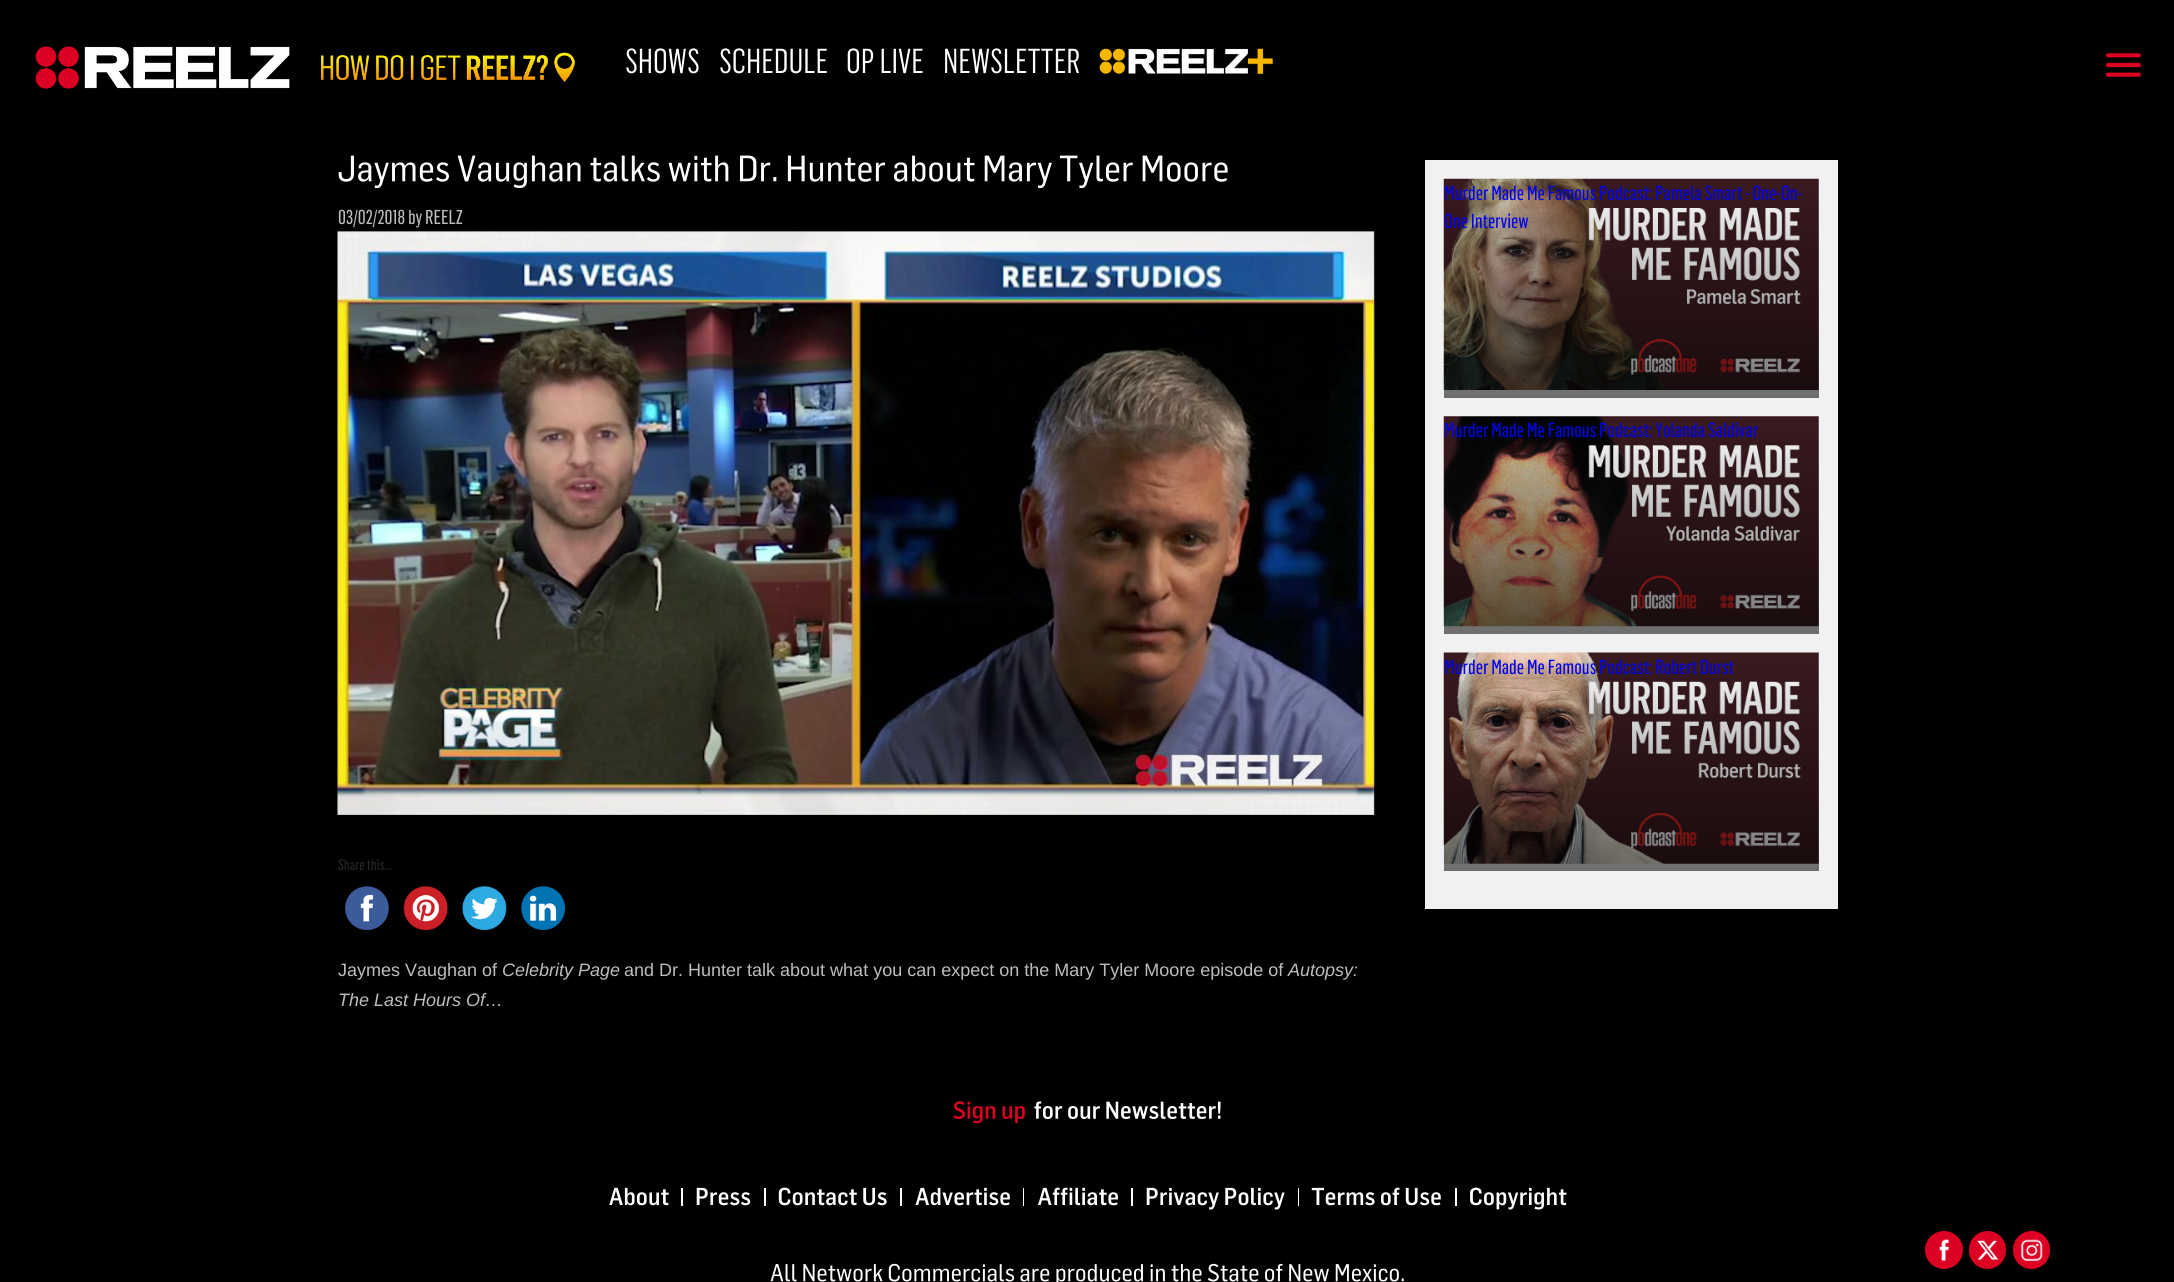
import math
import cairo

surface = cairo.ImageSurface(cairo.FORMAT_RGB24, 2174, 1282)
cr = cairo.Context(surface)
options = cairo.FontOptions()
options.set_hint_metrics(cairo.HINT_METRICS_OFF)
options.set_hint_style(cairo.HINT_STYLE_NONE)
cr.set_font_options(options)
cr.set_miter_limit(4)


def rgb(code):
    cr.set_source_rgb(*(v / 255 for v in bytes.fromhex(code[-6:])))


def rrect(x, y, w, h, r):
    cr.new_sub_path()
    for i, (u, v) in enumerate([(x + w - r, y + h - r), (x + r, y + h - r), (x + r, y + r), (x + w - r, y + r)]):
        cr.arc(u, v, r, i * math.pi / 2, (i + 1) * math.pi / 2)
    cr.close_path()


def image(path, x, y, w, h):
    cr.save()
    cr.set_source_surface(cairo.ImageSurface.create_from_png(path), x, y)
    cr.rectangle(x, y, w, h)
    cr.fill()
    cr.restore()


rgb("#000000")
cr.paint()
image("img/1.png", 35, 46, 255, 43)
image("img/2.png", 321, 52, 254, 30)
image("img/3.png", 1099, 48, 174, 27)
image("img/4.png", 2105, 53, 37, 24)
image("img/5.png", 338, 155, 890, 34)
image("img/6.png", 337, 231, 1038, 584)
image("img/7.png", 345, 886, 44, 44)
image("img/8.png", 403, 886, 45, 44)
image("img/9.png", 462, 886, 45, 44)
image("img/10.png", 521, 886, 44, 44)
rgb("#f1f1f1")
cr.rectangle(1425, 160, 413, 749)
cr.fill()
image("img/11.png", 1443, 178, 376, 212)
gradient = cairo.LinearGradient(1631, 179, 1631, 398)
gradient.add_color_stop_rgba(0, 0, 0, 0, 0)
gradient.add_color_stop_rgba(1, 0, 0, 0, 0.55)
cr.set_source(gradient)
cr.rectangle(1444, 188, 375, 210)
cr.fill()
image("img/12.png", 1443, 416, 376, 211)
gradient = cairo.LinearGradient(1631, 416, 1631, 634)
gradient.add_color_stop_rgba(0, 0, 0, 0, 0)
gradient.add_color_stop_rgba(1, 0, 0, 0, 0.55)
cr.set_source(gradient)
cr.rectangle(1444, 426, 375, 208)
cr.fill()
image("img/13.png", 1443, 652, 376, 212)
gradient = cairo.LinearGradient(1631, 653, 1631, 871)
gradient.add_color_stop_rgba(0, 0, 0, 0, 0)
gradient.add_color_stop_rgba(1, 0, 0, 0, 0.55)
cr.set_source(gradient)
cr.rectangle(1444, 662, 375, 209)
cr.fill()
image("img/14.png", 953, 1101, 72, 23)
image("img/15.png", 1034, 1101, 187, 18)
image("img/16.png", 609, 1187, 60, 19)
rgb("#ffffff")
cr.rectangle(681, 1188, 2, 18)
cr.fill()
image("img/17.png", 696, 1187, 55, 19)
cr.rectangle(764, 1188, 2, 18)
cr.fill()
image("img/18.png", 778, 1187, 109, 19)
cr.rectangle(900, 1188, 2, 18)
cr.fill()
image("img/19.png", 915, 1187, 95, 19)
cr.rectangle(1023, 1188, 1, 18)
cr.fill()
image("img/20.png", 1038, 1187, 80, 19)
cr.rectangle(1131, 1188, 2, 18)
cr.fill()
image("img/21.png", 1146, 1187, 139, 23)
cr.rectangle(1298, 1188, 1, 18)
cr.fill()
image("img/22.png", 1311, 1187, 130, 19)
cr.rectangle(1455, 1188, 2, 18)
cr.fill()
image("img/23.png", 1470, 1187, 97, 23)
image("img/24.png", 770, 1263, 634, 19)
rgb("#dc0023")
cr.arc(1944, 1250, 19, 0, 2 * math.pi)
cr.fill()
image("img/25.png", 1939, 1239, 10, 22)
rrect(1969, 1231, 37, 38, 18.5)
cr.fill()
image("img/26.png", 1977, 1240, 22, 20)
rrect(2013, 1231, 37, 38, 18.5)
cr.fill()
image("img/27.png", 2020, 1239, 23, 22)
cr.select_font_face("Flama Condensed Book")
cr.set_font_size(34)
rgb("#ffffff")
for x, y, s in [
    (625, 73, "SHOWS"),
    (719, 73, "SCHEDULE"),
    (846, 73, "OP LIVE"),
    (943, 73, "NEWSLETTER"),
]:
    cr.move_to(x, y)
    cr.show_text(s)
cr.select_font_face("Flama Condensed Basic")
cr.set_font_size(19.75)
rgb("#bdbdbd")
cr.move_to(338, 224)
cr.show_text("03/02/2018 by REELZ")
cr.set_font_size(15)
rgb("#272727")
cr.move_to(338, 870)
cr.show_text("Share this...")
cr.select_font_face("Liberation Sans")
cr.set_font_size(18)
rgb("#bdbdbd")
cr.move_to(338, 976)
cr.show_text("Jaymes Vaughan of")
cr.select_font_face("Liberation Sans", cairo.FONT_SLANT_ITALIC)
cr.move_to(502, 976)
cr.show_text("Celebrity Page")
cr.select_font_face("Liberation Sans")
cr.move_to(624, 976)
cr.show_text("and Dr. Hunter talk about what you can expect on the Mary Tyler Moore episode of")
cr.select_font_face("Liberation Sans", cairo.FONT_SLANT_ITALIC)
cr.move_to(1288, 976)
cr.show_text("Autopsy:")
cr.move_to(338, 1006)
cr.show_text("The Last Hours Of…")
cr.select_font_face("Flama Condensed Basic")
cr.set_font_size(20)
rgb("#0000ee")
for x, y, s in [
    (1444, 200, "Murder Made Me Famous Podcast: Pamela Smart - One-On-"),
    (1444, 228, "One Interview"),
    (1444, 437, "Murder Made Me Famous Podcast: Yolanda Saldivar"),
    (1444, 674, "Murder Made Me Famous Podcast: Robert Durst"),
]:
    cr.move_to(x, y)
    cr.show_text(s)
surface.write_to_png("page.png")
